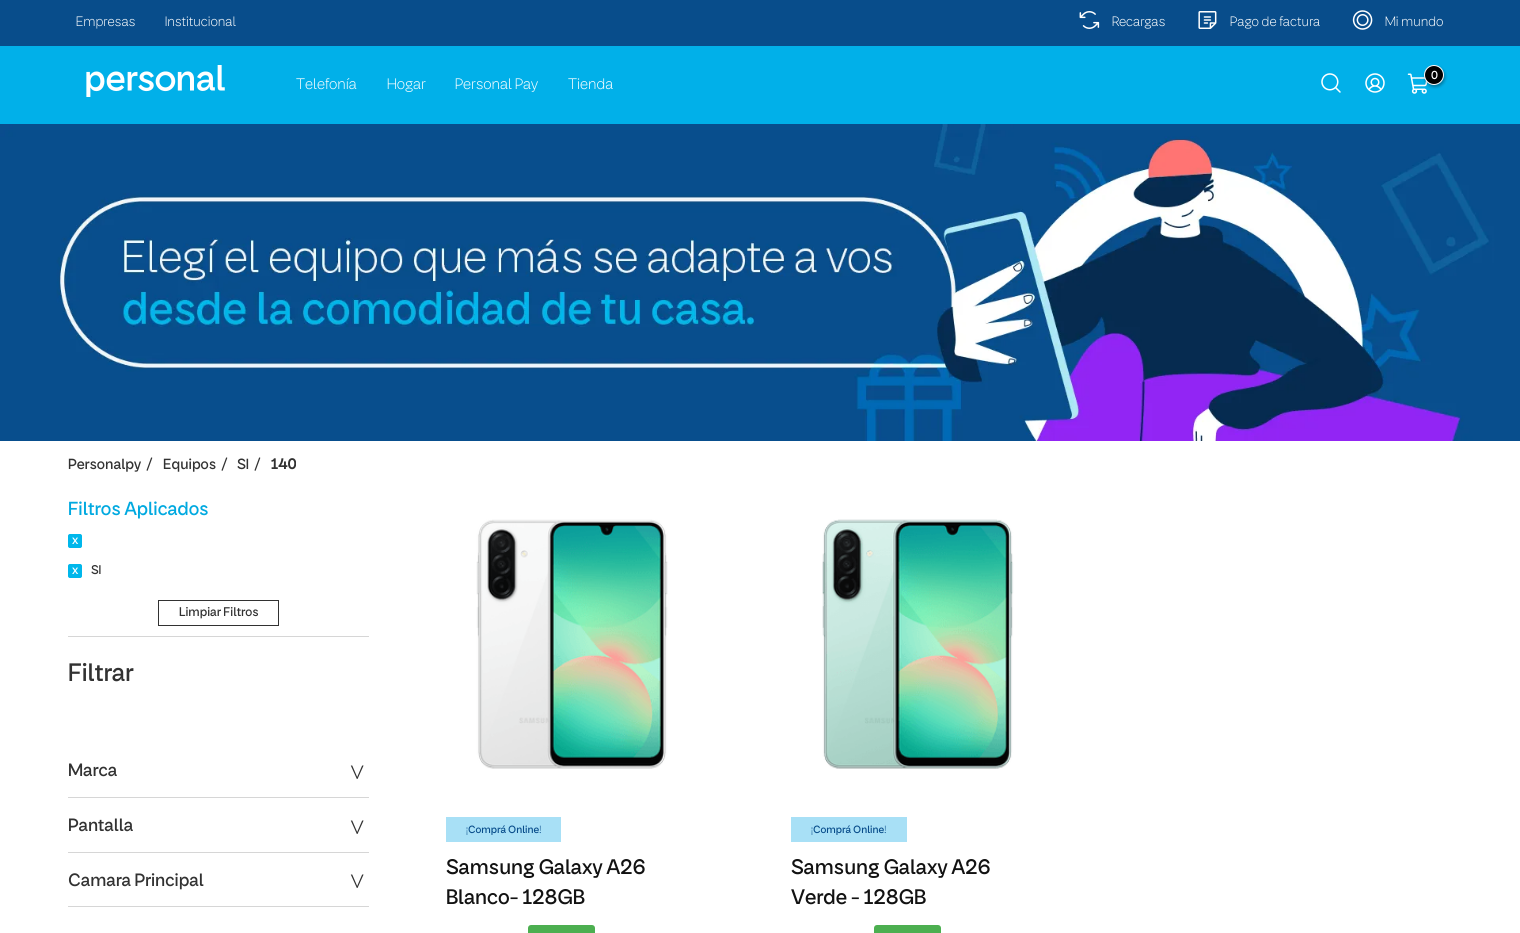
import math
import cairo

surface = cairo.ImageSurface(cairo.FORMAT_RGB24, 1520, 933)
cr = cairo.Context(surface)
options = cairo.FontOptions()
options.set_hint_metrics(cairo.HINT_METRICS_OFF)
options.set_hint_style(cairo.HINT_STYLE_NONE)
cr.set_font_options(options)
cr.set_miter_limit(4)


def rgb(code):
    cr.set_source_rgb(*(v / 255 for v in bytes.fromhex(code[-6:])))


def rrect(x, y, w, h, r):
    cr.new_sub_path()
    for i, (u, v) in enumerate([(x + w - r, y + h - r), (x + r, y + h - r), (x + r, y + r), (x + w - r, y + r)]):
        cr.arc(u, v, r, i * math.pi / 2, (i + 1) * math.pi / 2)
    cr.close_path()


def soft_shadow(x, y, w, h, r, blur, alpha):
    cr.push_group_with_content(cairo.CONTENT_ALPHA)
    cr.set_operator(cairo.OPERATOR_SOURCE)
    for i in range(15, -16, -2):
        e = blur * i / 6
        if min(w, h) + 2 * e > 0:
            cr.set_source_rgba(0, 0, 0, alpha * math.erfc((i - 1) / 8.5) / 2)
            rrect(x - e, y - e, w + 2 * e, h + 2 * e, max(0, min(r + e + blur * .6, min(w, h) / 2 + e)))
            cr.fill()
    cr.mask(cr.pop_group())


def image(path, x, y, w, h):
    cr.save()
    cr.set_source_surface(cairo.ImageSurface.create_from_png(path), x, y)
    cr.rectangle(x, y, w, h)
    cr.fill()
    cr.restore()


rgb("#ffffff")
cr.paint()
rgb("#084d8b")
cr.rectangle(0, 0, 1520, 46)
cr.fill()
image("img/1.png", 1079, 11, 21, 18)
image("img/2.png", 1198, 11, 19, 18)
image("img/3.png", 1352, 10, 21, 20)
rgb("#01b0e9")
cr.rectangle(0, 46, 1520, 78)
cr.fill()
image("img/4.png", 1321, 73, 20, 20)
image("img/5.png", 1365, 73, 20, 20)
image("img/6.png", 1407, 73, 21, 21)
rgb("#000000")
soft_shadow(1425, 67, 20, 20, 10, 1.5, 0.32)
rgb("#000000")
cr.arc(1434, 75, 9.5, 0, 2 * math.pi)
cr.fill_preserve()
rgb("#ffffff")
cr.set_line_width(1)
cr.stroke()
image("img/7.png", 86, 65, 139, 32)
image("img/8.png", 0, 124, 1520, 317)
rgb("#d6d6d6")
cr.rectangle(68, 636, 301, 1)
cr.fill()
rgb("#00b7eb")
rrect(68.5, 534.5, 13, 13, 1.5)
cr.fill_preserve()
cr.stroke()
image("img/9.png", 72, 537, 7, 7)
rrect(68.5, 564.5, 13, 13, 1.5)
cr.fill_preserve()
cr.stroke()
image("img/9.png", 72, 567, 7, 7)
cr.rectangle(158.5, 600.5, 120, 25)
rgb("#323232")
cr.stroke()
for x, y, w, h, color in [
    (68, 797, 301, 1, "#d6d6d6"),
    (68, 852, 301, 1, "#d6d6d6"),
    (68, 906, 301, 1, "#d6d6d6"),
]:
    rgb(color)
    cr.rectangle(x, y, w, h)
    cr.fill()
image("img/10.png", 476, 519, 192, 250)
rgb("#a8e0f6")
cr.rectangle(446, 817, 115, 25)
cr.fill()
rgb("#4caf50")
rrect(528, 925, 67, 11, 3)
cr.fill()
image("img/11.png", 822, 519, 192, 250)
rgb("#a8e0f6")
cr.rectangle(791, 817, 116, 25)
cr.fill()
rgb("#4caf50")
rrect(874, 925, 67, 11, 3)
cr.fill()
cr.select_font_face("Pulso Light")
cr.set_font_size(13)
rgb("#ffffff")
for x, y, s in [
    (76, 26, "Empresas"),
    (165, 26, "Institucional"),
    (1112, 26, "Recargas"),
    (1230, 26, "Pago de factura"),
    (1385, 26, "Mi mundo"),
]:
    cr.move_to(x, y)
    cr.show_text(s)
cr.select_font_face("Pulso")
cr.set_font_size(11)
cr.move_to(1431, 79)
cr.show_text("0")
cr.select_font_face("Pulso Light")
cr.set_font_size(14.5)
for x, y, s in [
    (296, 89, "Telefonía"),
    (387, 89, "Hogar"),
    (455, 89, "Personal Pay"),
    (568, 89, "Tienda"),
]:
    cr.move_to(x, y)
    cr.show_text(s)
cr.select_font_face("Pulso")
cr.set_font_size(14)
rgb("#323232")
for x, y, s in [
    (68, 469, "Personalpy"),
    (146, 469, "/"),
    (163, 469, "Equipos"),
    (221, 469, "/"),
    (237, 469, "SI"),
    (254, 469, "/"),
]:
    cr.move_to(x, y)
    cr.show_text(s)
cr.select_font_face("Pulso", cairo.FONT_SLANT_NORMAL, cairo.FONT_WEIGHT_BOLD)
cr.move_to(271, 469)
cr.show_text("140")
cr.select_font_face("Pulso")
cr.set_font_size(18)
rgb("#00a9e0")
cr.move_to(68, 515)
cr.show_text("Filtros Aplicados")
cr.set_font_size(12)
rgb("#323232")
cr.move_to(91, 574)
cr.show_text("SI")
cr.move_to(179, 616)
cr.show_text("Limpiar Filtros")
cr.set_font_size(24)
cr.move_to(68, 681)
cr.show_text("Filtrar")
cr.set_font_size(17)
cr.move_to(68, 776)
cr.show_text("Marca")
cr.select_font_face("Liberation Serif")
cr.set_font_size(29)
cr.save()
cr.translate(364, 760)
cr.rotate(180 * math.pi / 180)
cr.move_to(0, 0)
cr.show_text("^")
cr.restore()
cr.select_font_face("Pulso")
cr.set_font_size(17)
cr.move_to(68, 831)
cr.show_text("Pantalla")
cr.select_font_face("Liberation Serif")
cr.set_font_size(29)
cr.save()
cr.translate(364, 815)
cr.rotate(180 * math.pi / 180)
cr.move_to(0, 0)
cr.show_text("^")
cr.restore()
cr.select_font_face("Pulso")
cr.set_font_size(17)
cr.move_to(68, 886)
cr.show_text("Camara Principal")
cr.select_font_face("Liberation Serif")
cr.set_font_size(29)
cr.save()
cr.translate(364, 869)
cr.rotate(180 * math.pi / 180)
cr.move_to(0, 0)
cr.show_text("^")
cr.restore()
cr.select_font_face("Pulso")
cr.set_font_size(10)
rgb("#084d8b")
cr.move_to(466, 833)
cr.show_text("¡Comprá Online!")
cr.set_font_size(20)
rgb("#121212")
cr.move_to(446, 874)
cr.show_text("Samsung Galaxy A26")
cr.move_to(446, 904)
cr.show_text("Blanco- 128GB")
cr.set_font_size(10)
rgb("#084d8b")
cr.move_to(811, 833)
cr.show_text("¡Comprá Online!")
cr.set_font_size(20)
rgb("#121212")
cr.move_to(791, 874)
cr.show_text("Samsung Galaxy A26")
cr.move_to(791, 904)
cr.show_text("Verde - 128GB")
surface.write_to_png("page.png")
